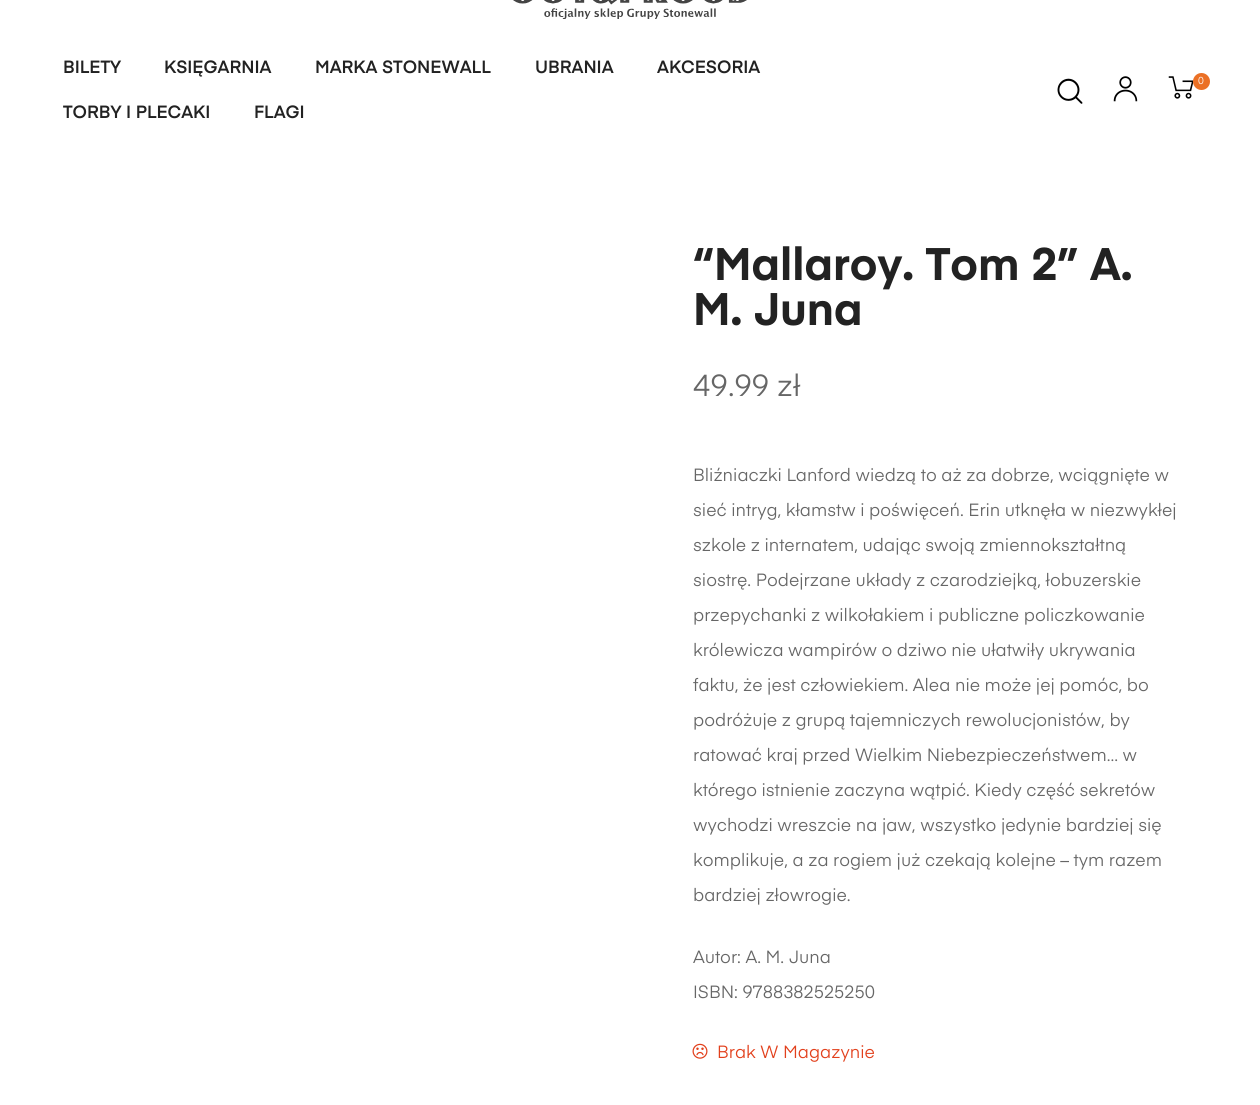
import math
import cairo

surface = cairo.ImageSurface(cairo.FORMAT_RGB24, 1260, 1105)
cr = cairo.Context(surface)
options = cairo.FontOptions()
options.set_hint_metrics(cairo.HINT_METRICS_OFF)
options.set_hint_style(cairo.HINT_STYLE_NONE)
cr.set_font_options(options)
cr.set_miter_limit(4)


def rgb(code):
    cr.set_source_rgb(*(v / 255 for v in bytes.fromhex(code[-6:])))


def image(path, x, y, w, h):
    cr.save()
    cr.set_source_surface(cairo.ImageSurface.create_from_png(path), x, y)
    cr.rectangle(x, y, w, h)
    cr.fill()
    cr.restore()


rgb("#ffffff")
cr.paint()
image("img/1.png", 513, 0, 234, 19)
image("img/2.png", 1057, 78, 26, 26)
image("img/3.png", 1113, 76, 25, 26)
image("img/4.png", 1168, 76, 26, 23)
rgb("#eb7025")
cr.arc(1201.5, 81.5, 8.5, 0, 2 * math.pi)
cr.fill()
image("img/5.png", 692, 1043, 16, 16)
cr.select_font_face("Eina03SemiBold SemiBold")
cr.set_font_size(17.5)
rgb("#222222")
for x, y, s in [
    (63, 73, "BILETY"),
    (164, 73, "KSIĘGARNIA"),
    (315, 73, "MARKA STONEWALL"),
    (535, 73, "UBRANIA"),
    (657, 73, "AKCESORIA"),
    (63, 118, "TORBY I PLECAKI"),
    (254, 118, "FLAGI"),
]:
    cr.move_to(x, y)
    cr.show_text(s)
cr.select_font_face("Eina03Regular")
cr.set_font_size(10)
rgb("#ffffff")
cr.move_to(1198, 84)
cr.show_text("0")
cr.select_font_face("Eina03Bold", cairo.FONT_SLANT_NORMAL, cairo.FONT_WEIGHT_BOLD)
cr.set_font_size(45)
rgb("#222222")
cr.move_to(693, 280)
cr.show_text("“Mallaroy. Tom 2” A.")
cr.move_to(693, 325)
cr.show_text("M. Juna")
cr.select_font_face("Eina03Regular")
cr.set_font_size(30)
rgb("#666666")
cr.move_to(693, 396)
cr.show_text("49.99 zł")
cr.set_font_size(17.5)
for x, y, s in [
    (693, 481, "Bliźniaczki Lanford wiedzą to aż za dobrze, wciągnięte w"),
    (693, 516, "sieć intryg, kłamstw i poświęceń. Erin utknęła w niezwykłej"),
    (693, 551, "szkole z internatem, udając swoją zmiennokształtną"),
    (693, 586, "siostrę. Podejrzane układy z czarodziejką, łobuzerskie"),
    (693, 621, "przepychanki z wilkołakiem i publiczne policzkowanie"),
    (693, 656, "królewicza wampirów o dziwo nie ułatwiły ukrywania"),
    (693, 691, "faktu, że jest człowiekiem. Alea nie może jej pomóc, bo"),
    (693, 726, "podróżuje z grupą tajemniczych rewolucjonistów, by"),
    (693, 761, "ratować kraj przed Wielkim Niebezpieczeństwem… w"),
    (693, 796, "którego istnienie zaczyna wątpić. Kiedy część sekretów"),
    (693, 831, "wychodzi wreszcie na jaw, wszystko jedynie bardziej się"),
    (693, 866, "komplikuje, a za rogiem już czekają kolejne – tym razem"),
    (693, 901, "bardziej złowrogie."),
    (693, 963, "Autor: A. M. Juna"),
    (693, 998, "ISBN: 9788382525250"),
]:
    cr.move_to(x, y)
    cr.show_text(s)
rgb("#e2401c")
cr.move_to(717, 1058)
cr.show_text("Brak W Magazynie")
surface.write_to_png("page.png")
